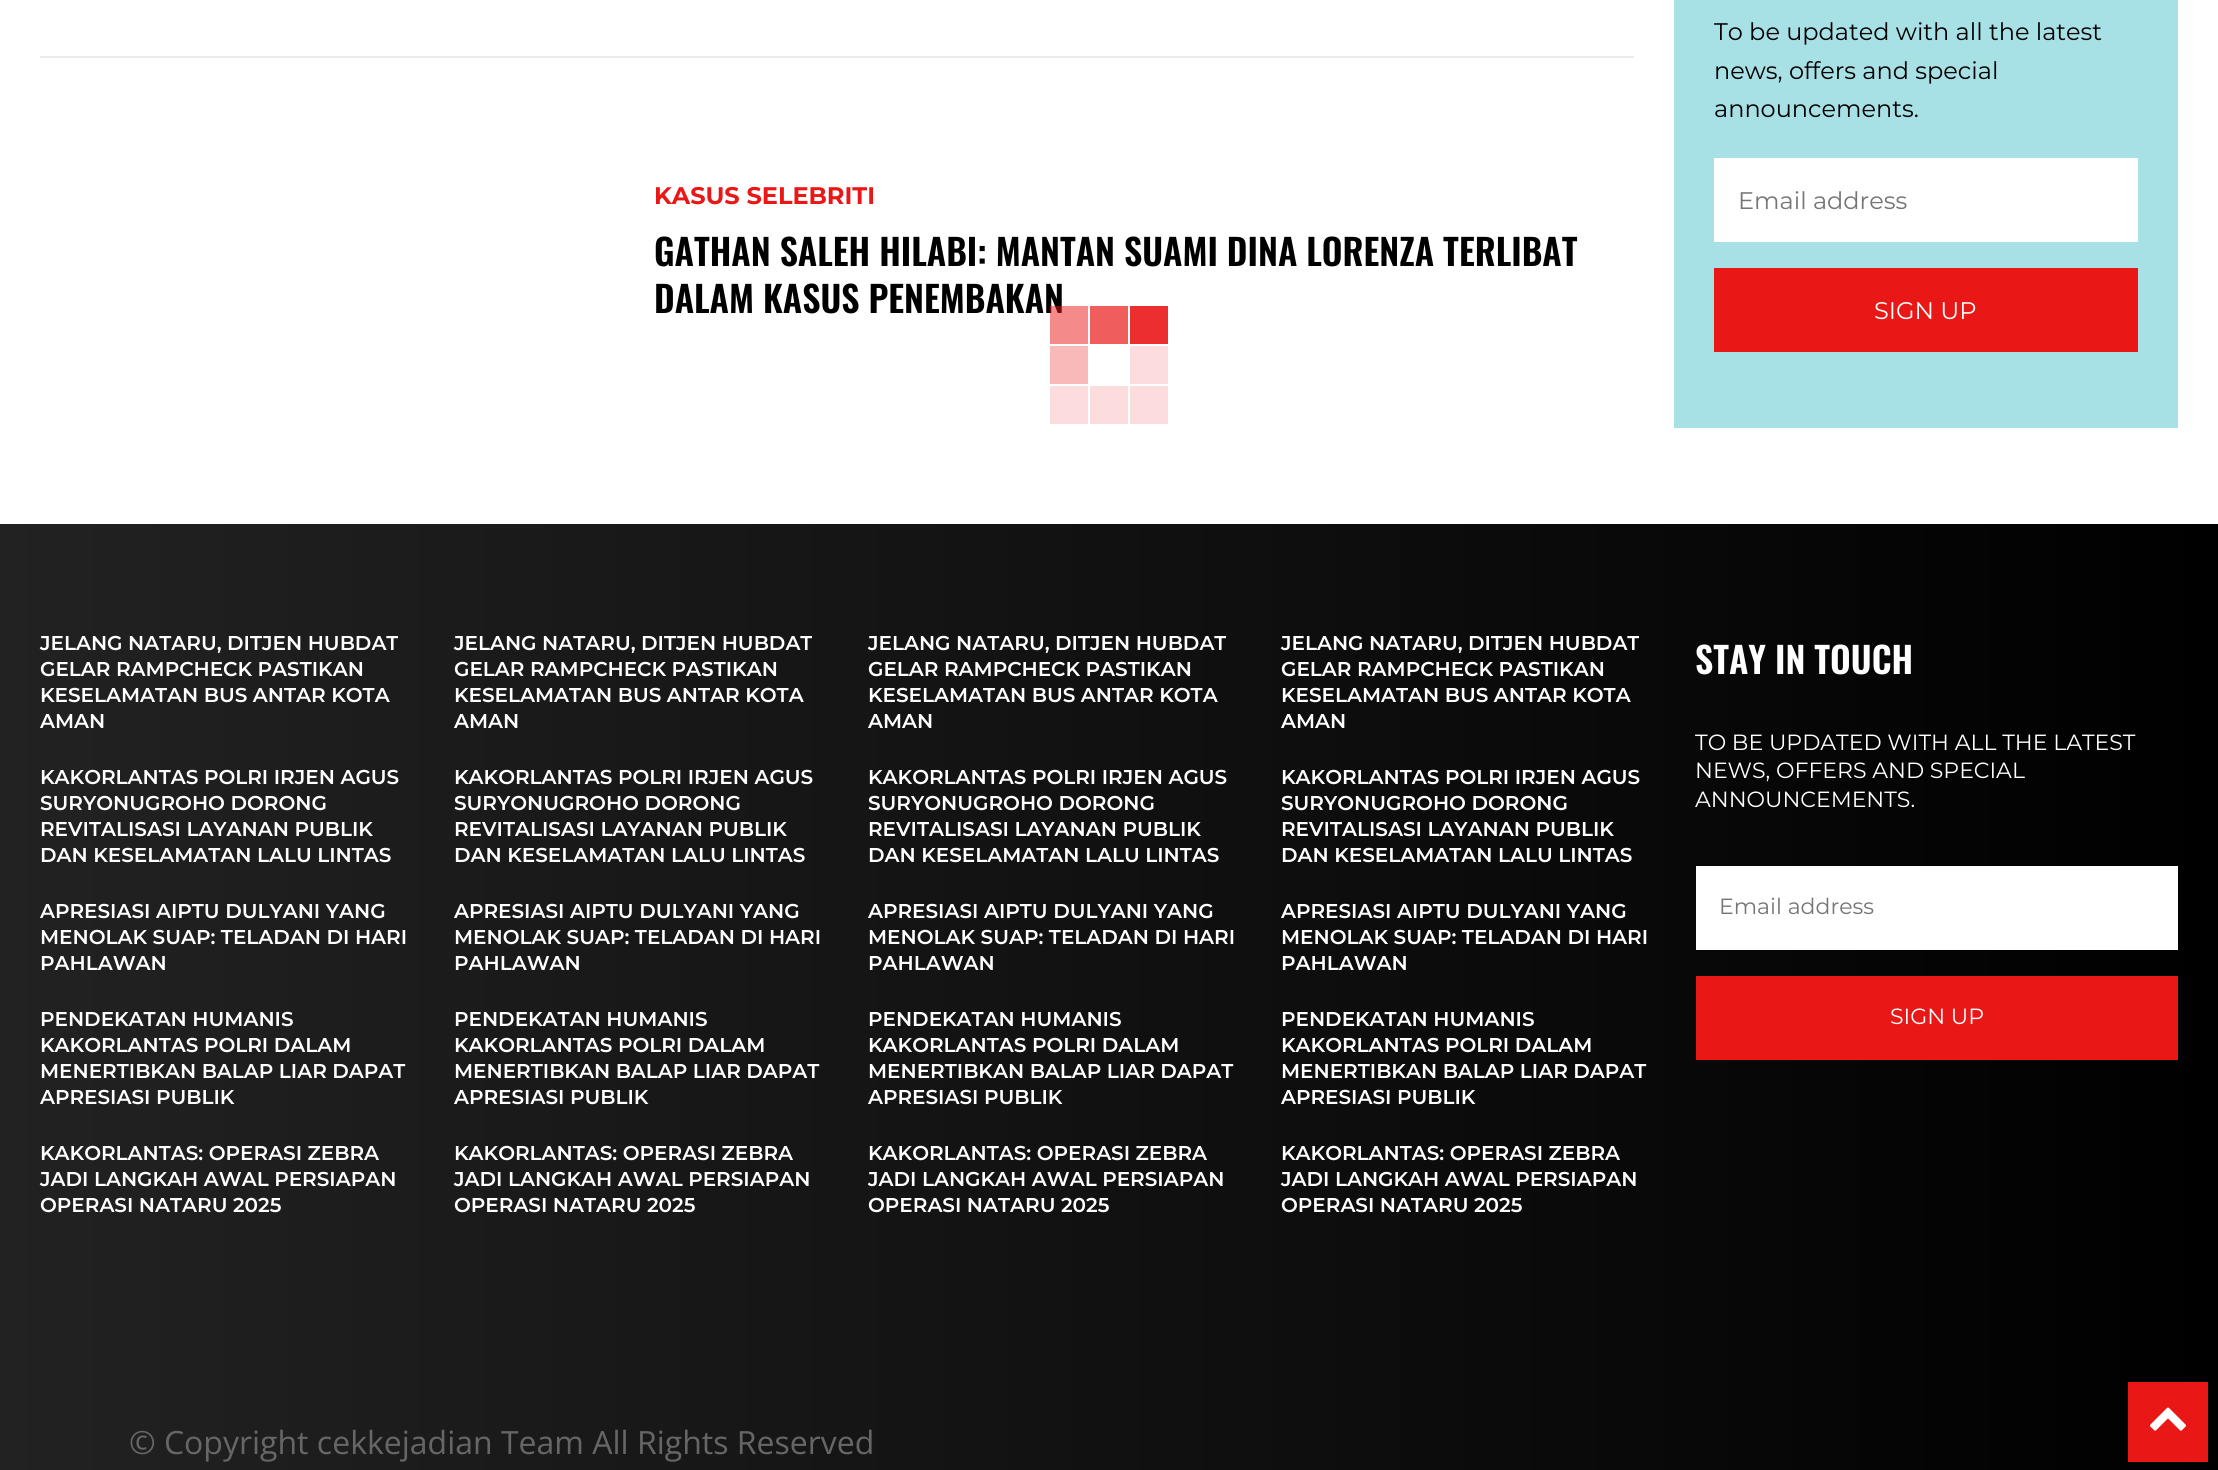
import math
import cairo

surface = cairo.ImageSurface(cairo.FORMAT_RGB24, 2218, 1470)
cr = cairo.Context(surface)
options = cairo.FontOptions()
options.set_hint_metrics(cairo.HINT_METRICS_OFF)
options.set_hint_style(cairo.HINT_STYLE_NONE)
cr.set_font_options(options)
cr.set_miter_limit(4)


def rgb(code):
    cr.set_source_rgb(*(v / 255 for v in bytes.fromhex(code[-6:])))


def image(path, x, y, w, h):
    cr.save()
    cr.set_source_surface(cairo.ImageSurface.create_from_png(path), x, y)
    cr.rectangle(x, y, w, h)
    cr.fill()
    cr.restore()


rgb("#ffffff")
cr.paint()
for x, y, w, h, color in [
    (40, 56, 1594, 2, "#eaeaea"),
    (1674, 0, 504, 428, "#a7e0e5"),
    (1714, 158, 424, 84, "#ffffff"),
    (1714, 268, 424, 84, "#ea1717"),
    (1090, 306, 38, 38, "#f05d5d"),
    (1130, 306, 38, 38, "#ec2e2e"),
    (1050, 346, 38, 38, "#f9b9b9"),
    (1130, 346, 38, 38, "#fcdcdc"),
    (1050, 386, 38, 38, "#fcdcdc"),
    (1090, 386, 38, 38, "#fcdcdc"),
    (1130, 386, 38, 38, "#fcdcdc"),
]:
    rgb(color)
    cr.rectangle(x, y, w, h)
    cr.fill()
gradient = cairo.LinearGradient(2218, 997, 0, 997)
gradient.add_color_stop_rgba(0, 0, 0, 0, 1)
gradient.add_color_stop_rgba(1, 0.133, 0.133, 0.133, 1)
cr.set_source(gradient)
cr.rectangle(0, 524, 2218, 946)
cr.fill()
for x, y, w, h, color in [
    (1696, 866, 482, 84, "#ffffff"),
    (1696, 976, 482, 84, "#ea1717"),
    (2128, 1382, 80, 80, "#ea1717"),
]:
    rgb(color)
    cr.rectangle(x, y, w, h)
    cr.fill()
image("img/1.png", 2150, 1407, 36, 24)
cr.select_font_face("Montserrat", cairo.FONT_SLANT_NORMAL, cairo.FONT_WEIGHT_BOLD)
cr.set_font_size(24)
cr.move_to(654, 204)
cr.show_text("KASUS SELEBRITI")
cr.select_font_face("Oswald SemiBold")
cr.set_font_size(36)
rgb("#000000")
cr.move_to(654, 266)
cr.show_text("GATHAN SALEH HILABI: MANTAN SUAMI DINA LORENZA TERLIBAT")
cr.move_to(654, 313)
cr.show_text("DALAM KASUS PENEMBAKAN")
cr.select_font_face("Montserrat")
cr.set_font_size(24)
for x, y, s in [
    (1714, 40, "To be updated with all the latest"),
    (1714, 79, "news, offers and special"),
    (1714, 117, "announcements."),
]:
    cr.move_to(x, y)
    cr.show_text(s)
rgb("#757575")
cr.move_to(1738, 209)
cr.show_text("Email address")
rgb("#ffffff")
cr.move_to(1874, 319)
cr.show_text("SIGN UP")
cr.set_source_rgba(0.918, 0.09, 0.09, 0.5)
cr.rectangle(1050, 306, 38, 38)
cr.fill()
cr.select_font_face("Montserrat SemiBold")
cr.set_font_size(20)
rgb("#ffffff")
for x, y, s in [
    (40, 650, "JELANG NATARU, DITJEN HUBDAT"),
    (40, 676, "GELAR RAMPCHECK PASTIKAN"),
    (40, 702, "KESELAMATAN BUS ANTAR KOTA"),
    (40, 728, "AMAN"),
    (40, 784, "KAKORLANTAS POLRI IRJEN AGUS"),
    (40, 810, "SURYONUGROHO DORONG"),
    (40, 836, "REVITALISASI LAYANAN PUBLIK"),
    (40, 862, "DAN KESELAMATAN LALU LINTAS"),
    (40, 918, "APRESIASI AIPTU DULYANI YANG"),
    (40, 944, "MENOLAK SUAP: TELADAN DI HARI"),
    (40, 970, "PAHLAWAN"),
    (40, 1026, "PENDEKATAN HUMANIS"),
    (40, 1052, "KAKORLANTAS POLRI DALAM"),
    (40, 1078, "MENERTIBKAN BALAP LIAR DAPAT"),
    (40, 1104, "APRESIASI PUBLIK"),
    (40, 1160, "KAKORLANTAS: OPERASI ZEBRA"),
    (40, 1186, "JADI LANGKAH AWAL PERSIAPAN"),
    (40, 1212, "OPERASI NATARU 2025"),
    (454, 650, "JELANG NATARU, DITJEN HUBDAT"),
    (454, 676, "GELAR RAMPCHECK PASTIKAN"),
    (454, 702, "KESELAMATAN BUS ANTAR KOTA"),
    (454, 728, "AMAN"),
    (454, 784, "KAKORLANTAS POLRI IRJEN AGUS"),
    (454, 810, "SURYONUGROHO DORONG"),
    (454, 836, "REVITALISASI LAYANAN PUBLIK"),
    (454, 862, "DAN KESELAMATAN LALU LINTAS"),
    (454, 918, "APRESIASI AIPTU DULYANI YANG"),
    (454, 944, "MENOLAK SUAP: TELADAN DI HARI"),
    (454, 970, "PAHLAWAN"),
    (454, 1026, "PENDEKATAN HUMANIS"),
    (454, 1052, "KAKORLANTAS POLRI DALAM"),
    (454, 1078, "MENERTIBKAN BALAP LIAR DAPAT"),
    (454, 1104, "APRESIASI PUBLIK"),
    (454, 1160, "KAKORLANTAS: OPERASI ZEBRA"),
    (454, 1186, "JADI LANGKAH AWAL PERSIAPAN"),
    (454, 1212, "OPERASI NATARU 2025"),
    (868, 650, "JELANG NATARU, DITJEN HUBDAT"),
    (868, 676, "GELAR RAMPCHECK PASTIKAN"),
    (868, 702, "KESELAMATAN BUS ANTAR KOTA"),
    (868, 728, "AMAN"),
    (868, 784, "KAKORLANTAS POLRI IRJEN AGUS"),
    (868, 810, "SURYONUGROHO DORONG"),
    (868, 836, "REVITALISASI LAYANAN PUBLIK"),
    (868, 862, "DAN KESELAMATAN LALU LINTAS"),
    (868, 918, "APRESIASI AIPTU DULYANI YANG"),
    (868, 944, "MENOLAK SUAP: TELADAN DI HARI"),
    (868, 970, "PAHLAWAN"),
    (868, 1026, "PENDEKATAN HUMANIS"),
    (868, 1052, "KAKORLANTAS POLRI DALAM"),
    (868, 1078, "MENERTIBKAN BALAP LIAR DAPAT"),
    (868, 1104, "APRESIASI PUBLIK"),
    (868, 1160, "KAKORLANTAS: OPERASI ZEBRA"),
    (868, 1186, "JADI LANGKAH AWAL PERSIAPAN"),
    (868, 1212, "OPERASI NATARU 2025"),
    (1281, 650, "JELANG NATARU, DITJEN HUBDAT"),
    (1281, 676, "GELAR RAMPCHECK PASTIKAN"),
    (1281, 702, "KESELAMATAN BUS ANTAR KOTA"),
    (1281, 728, "AMAN"),
    (1281, 784, "KAKORLANTAS POLRI IRJEN AGUS"),
    (1281, 810, "SURYONUGROHO DORONG"),
    (1281, 836, "REVITALISASI LAYANAN PUBLIK"),
    (1281, 862, "DAN KESELAMATAN LALU LINTAS"),
    (1281, 918, "APRESIASI AIPTU DULYANI YANG"),
    (1281, 944, "MENOLAK SUAP: TELADAN DI HARI"),
    (1281, 970, "PAHLAWAN"),
    (1281, 1026, "PENDEKATAN HUMANIS"),
    (1281, 1052, "KAKORLANTAS POLRI DALAM"),
    (1281, 1078, "MENERTIBKAN BALAP LIAR DAPAT"),
    (1281, 1104, "APRESIASI PUBLIK"),
    (1281, 1160, "KAKORLANTAS: OPERASI ZEBRA"),
    (1281, 1186, "JADI LANGKAH AWAL PERSIAPAN"),
    (1281, 1212, "OPERASI NATARU 2025"),
]:
    cr.move_to(x, y)
    cr.show_text(s)
cr.select_font_face("Oswald SemiBold")
cr.set_font_size(36)
cr.move_to(1695, 674)
cr.show_text("STAY IN TOUCH")
cr.select_font_face("Montserrat")
cr.set_font_size(22)
for x, y, s in [
    (1695, 750, "TO BE UPDATED WITH ALL THE LATEST"),
    (1695, 778, "NEWS, OFFERS AND SPECIAL"),
    (1695, 807, "ANNOUNCEMENTS."),
]:
    cr.move_to(x, y)
    cr.show_text(s)
rgb("#757575")
cr.move_to(1719, 914)
cr.show_text("Email address")
rgb("#ffffff")
cr.move_to(1890, 1024)
cr.show_text("SIGN UP")
cr.select_font_face("Open Sans")
cr.set_font_size(32)
rgb("#666666")
cr.move_to(129, 1454)
cr.show_text("© Copyright cekkejadian Team All Rights Reserved")
surface.write_to_png("page.png")
